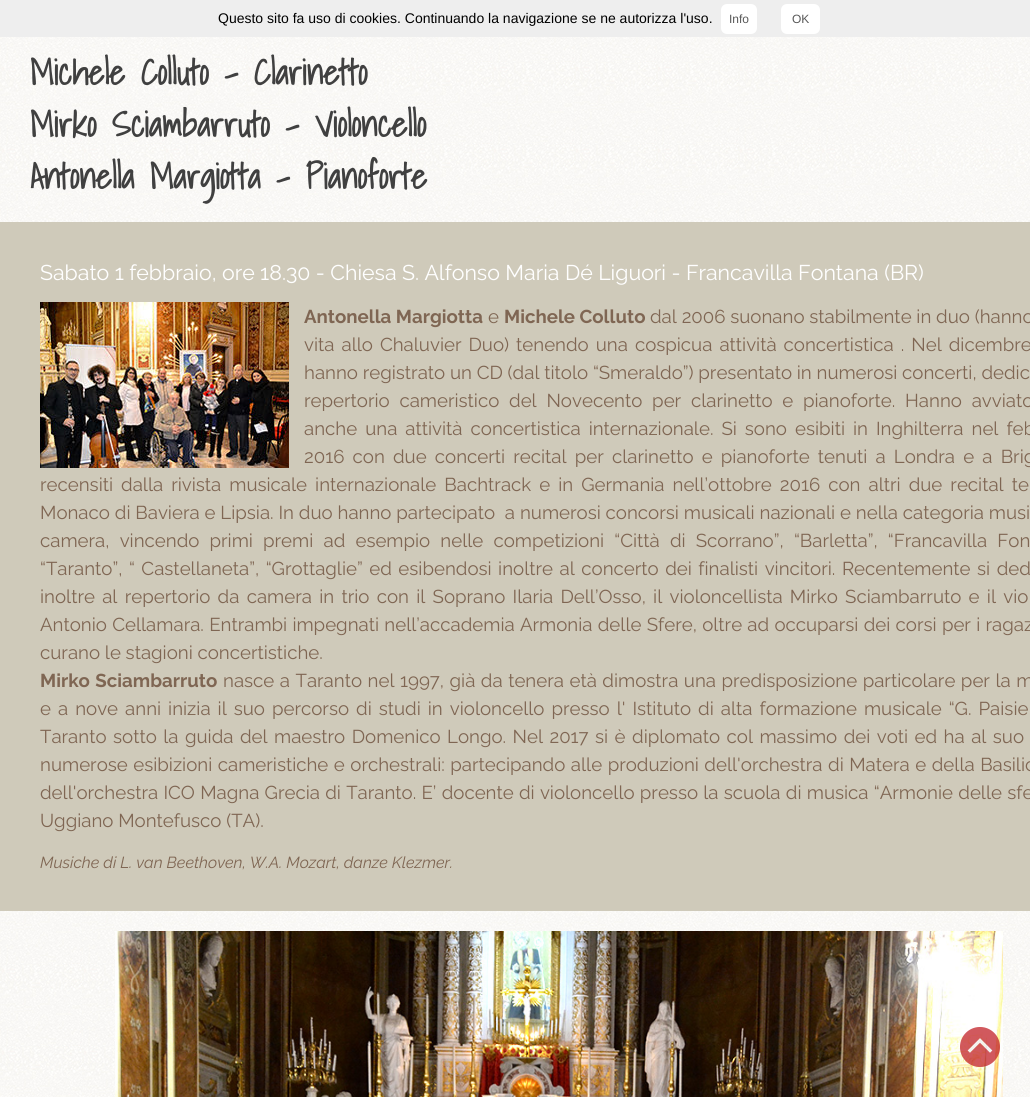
import math
import cairo

surface = cairo.ImageSurface(cairo.FORMAT_RGB24, 1030, 1097)
cr = cairo.Context(surface)
options = cairo.FontOptions()
options.set_hint_metrics(cairo.HINT_METRICS_OFF)
options.set_hint_style(cairo.HINT_STYLE_NONE)
cr.set_font_options(options)
cr.set_miter_limit(4)


def rgb(code):
    cr.set_source_rgb(*(v / 255 for v in bytes.fromhex(code[-6:])))


def tracked(x, y, s, letter, word):
    cr.move_to(x, y)
    for ch in s:
        cr.show_text(ch)
        cr.rel_move_to(letter + word * (ch == ' '), 0)


def rrect(x, y, w, h, r):
    cr.new_sub_path()
    for i, (u, v) in enumerate([(x + w - r, y + h - r), (x + r, y + h - r), (x + r, y + r), (x + w - r, y + r)]):
        cr.arc(u, v, r, i * math.pi / 2, (i + 1) * math.pi / 2)
    cr.close_path()


def image(path, x, y, w, h):
    cr.save()
    cr.set_source_surface(cairo.ImageSurface.create_from_png(path), x, y)
    cr.rectangle(x, y, w, h)
    cr.fill()
    cr.restore()


rgb("#ffffff")
cr.paint()
rgb("#eeeeee")
cr.rectangle(0, 0, 1030, 37)
cr.fill()
rgb("#ffffff")
rrect(721, 4, 36, 30, 6)
cr.fill()
rrect(781, 4, 39, 30, 6)
cr.fill()
image("img/1.png", 0, 37, 1030, 1060)
rgb("#cfcaba")
cr.rectangle(0, 222, 1030, 689)
cr.fill()
image("img/2.png", 40, 302, 249, 166)
image("img/3.png", 115, 931, 888, 166)
image("img/4.png", 960, 1027, 40, 40)
cr.select_font_face("Liberation Sans")
cr.set_font_size(14)
rgb("#000000")
cr.move_to(218, 23)
cr.show_text("Questo sito fa uso di cookies. Continuando la navigazione se ne autorizza l'uso.")
cr.set_font_size(12)
rgb("#585858")
cr.move_to(729, 23)
cr.show_text("Info")
cr.move_to(792, 23)
cr.show_text("OK")
cr.select_font_face("Shadows Into Light", cairo.FONT_SLANT_NORMAL, cairo.FONT_WEIGHT_BOLD)
cr.set_font_size(34.75)
rgb("#404040")
for x, y, s in [
    (30, 85, "Michele Colluto - Clarinetto"),
    (30, 137, "Mirko Sciambarruto - Violoncello"),
    (30, 189, "Antonella Margiotta - Pianoforte"),
]:
    cr.move_to(x, y)
    cr.show_text(s)
cr.select_font_face("Raleway")
cr.set_font_size(21.35)
rgb("#ffffff")
cr.move_to(40, 280)
cr.show_text("Sabato 1 febbraio, ore 18.30 - Chiesa S. Alfonso Maria Dé Liguori - Francavilla Fontana (BR)")
cr.select_font_face("Raleway", cairo.FONT_SLANT_NORMAL, cairo.FONT_WEIGHT_BOLD)
cr.set_font_size(18.67)
rgb("#7f6653")
cr.move_to(304, 323)
cr.show_text("Antonella Margiotta")
cr.select_font_face("Raleway")
cr.move_to(488, 323)
cr.show_text("e")
cr.select_font_face("Raleway", cairo.FONT_SLANT_NORMAL, cairo.FONT_WEIGHT_BOLD)
cr.move_to(504, 323)
cr.show_text("Michele Colluto")
cr.select_font_face("Raleway")
cr.move_to(650, 323)
cr.show_text("dal 2006 suonano stabilmente in duo (hanno")
tracked(304, 351, "vita allo Chaluvier Duo) tenendo una cospicua attività concertistica . Nel dicembre", 0, 2.25)
cr.move_to(304, 379)
cr.show_text("hanno registrato un CD (dal titolo “Smeraldo”) presentato in numerosi concerti, dedic")
tracked(304, 407, "repertorio cameristico del Novecento per clarinetto e pianoforte. Hanno avviato", 0, 5)
tracked(304, 435, "anche una attività concertistica internazionale. Si sono esibiti in Inghilterra nel feb", 0, 3.25)
tracked(304, 463, "2016 con due concerti recital per clarinetto e pianoforte tenuti a Londra e a Brig", 0, 3.4)
tracked(40, 491, "recensiti dalla rivista musicale internazionale Bachtrack e in Germania nell’ottobre 2016 con altri due recital te", 0, 3.25)
tracked(40, 519, "Monaco di Baviera e Lipsia. In duo hanno partecipato  a numerosi concorsi musicali nazionali e nella categoria musi", 0, 0.1)
tracked(40, 547, "camera, vincendo primi premi ad esempio nelle competizioni “Città di Scorrano”, “Barletta”, “Francavilla Fon", 0, 5.4)
tracked(40, 575, "“Taranto”, “ Castellaneta”, “Grottaglie” ed esibendosi inoltre al concerto dei finalisti vincitori. Recentemente si ded", 0, 1.75)
tracked(40, 603, "inoltre al repertorio da camera in trio con il Soprano Ilaria Dell’Osso, il violoncellista Mirko Sciambarruto e il vio", 0, 2.5)
tracked(40, 631, "Antonio Cellamara. Entrambi impegnati nell’accademia Armonia delle Sfere, oltre ad occuparsi dei corsi per i ragaz", 0, 0.5)
cr.move_to(40, 659)
cr.show_text("curano le stagioni concertistiche.")
cr.select_font_face("Raleway", cairo.FONT_SLANT_NORMAL, cairo.FONT_WEIGHT_BOLD)
tracked(40, 687, "Mirko Sciambarruto", 0, 1)
cr.select_font_face("Raleway")
tracked(223, 687, "nasce a Taranto nel 1997, già da tenera età dimostra una predisposizione particolare per la m", 0, 0.75)
tracked(40, 715, "e a nove anni inizia il suo percorso di studi in violoncello presso l' Istituto di alta formazione musicale “G. Paisie", 0, 2.25)
tracked(40, 743, "Taranto sotto la guida del maestro Domenico Longo. Nel 2017 si è diplomato col massimo dei voti ed ha al suo", 0, 1.7)
tracked(40, 771, "numerose esibizioni cameristiche e orchestrali: partecipando alle produzioni dell'orchestra di Matera e della Basilic", 0, 0.75)
tracked(40, 799, "dell'orchestra ICO Magna Grecia di Taranto. E’ docente di violoncello presso la scuola di musica “Armonie delle sfe", 0, 0.5)
cr.move_to(40, 827)
cr.show_text("Uggiano Montefusco (TA).")
cr.select_font_face("Raleway", cairo.FONT_SLANT_ITALIC)
cr.set_font_size(16)
cr.move_to(40, 868)
cr.show_text("Musiche di L. van Beethoven, W.A. Mozart, danze Klezmer.")
surface.write_to_png("page.png")
